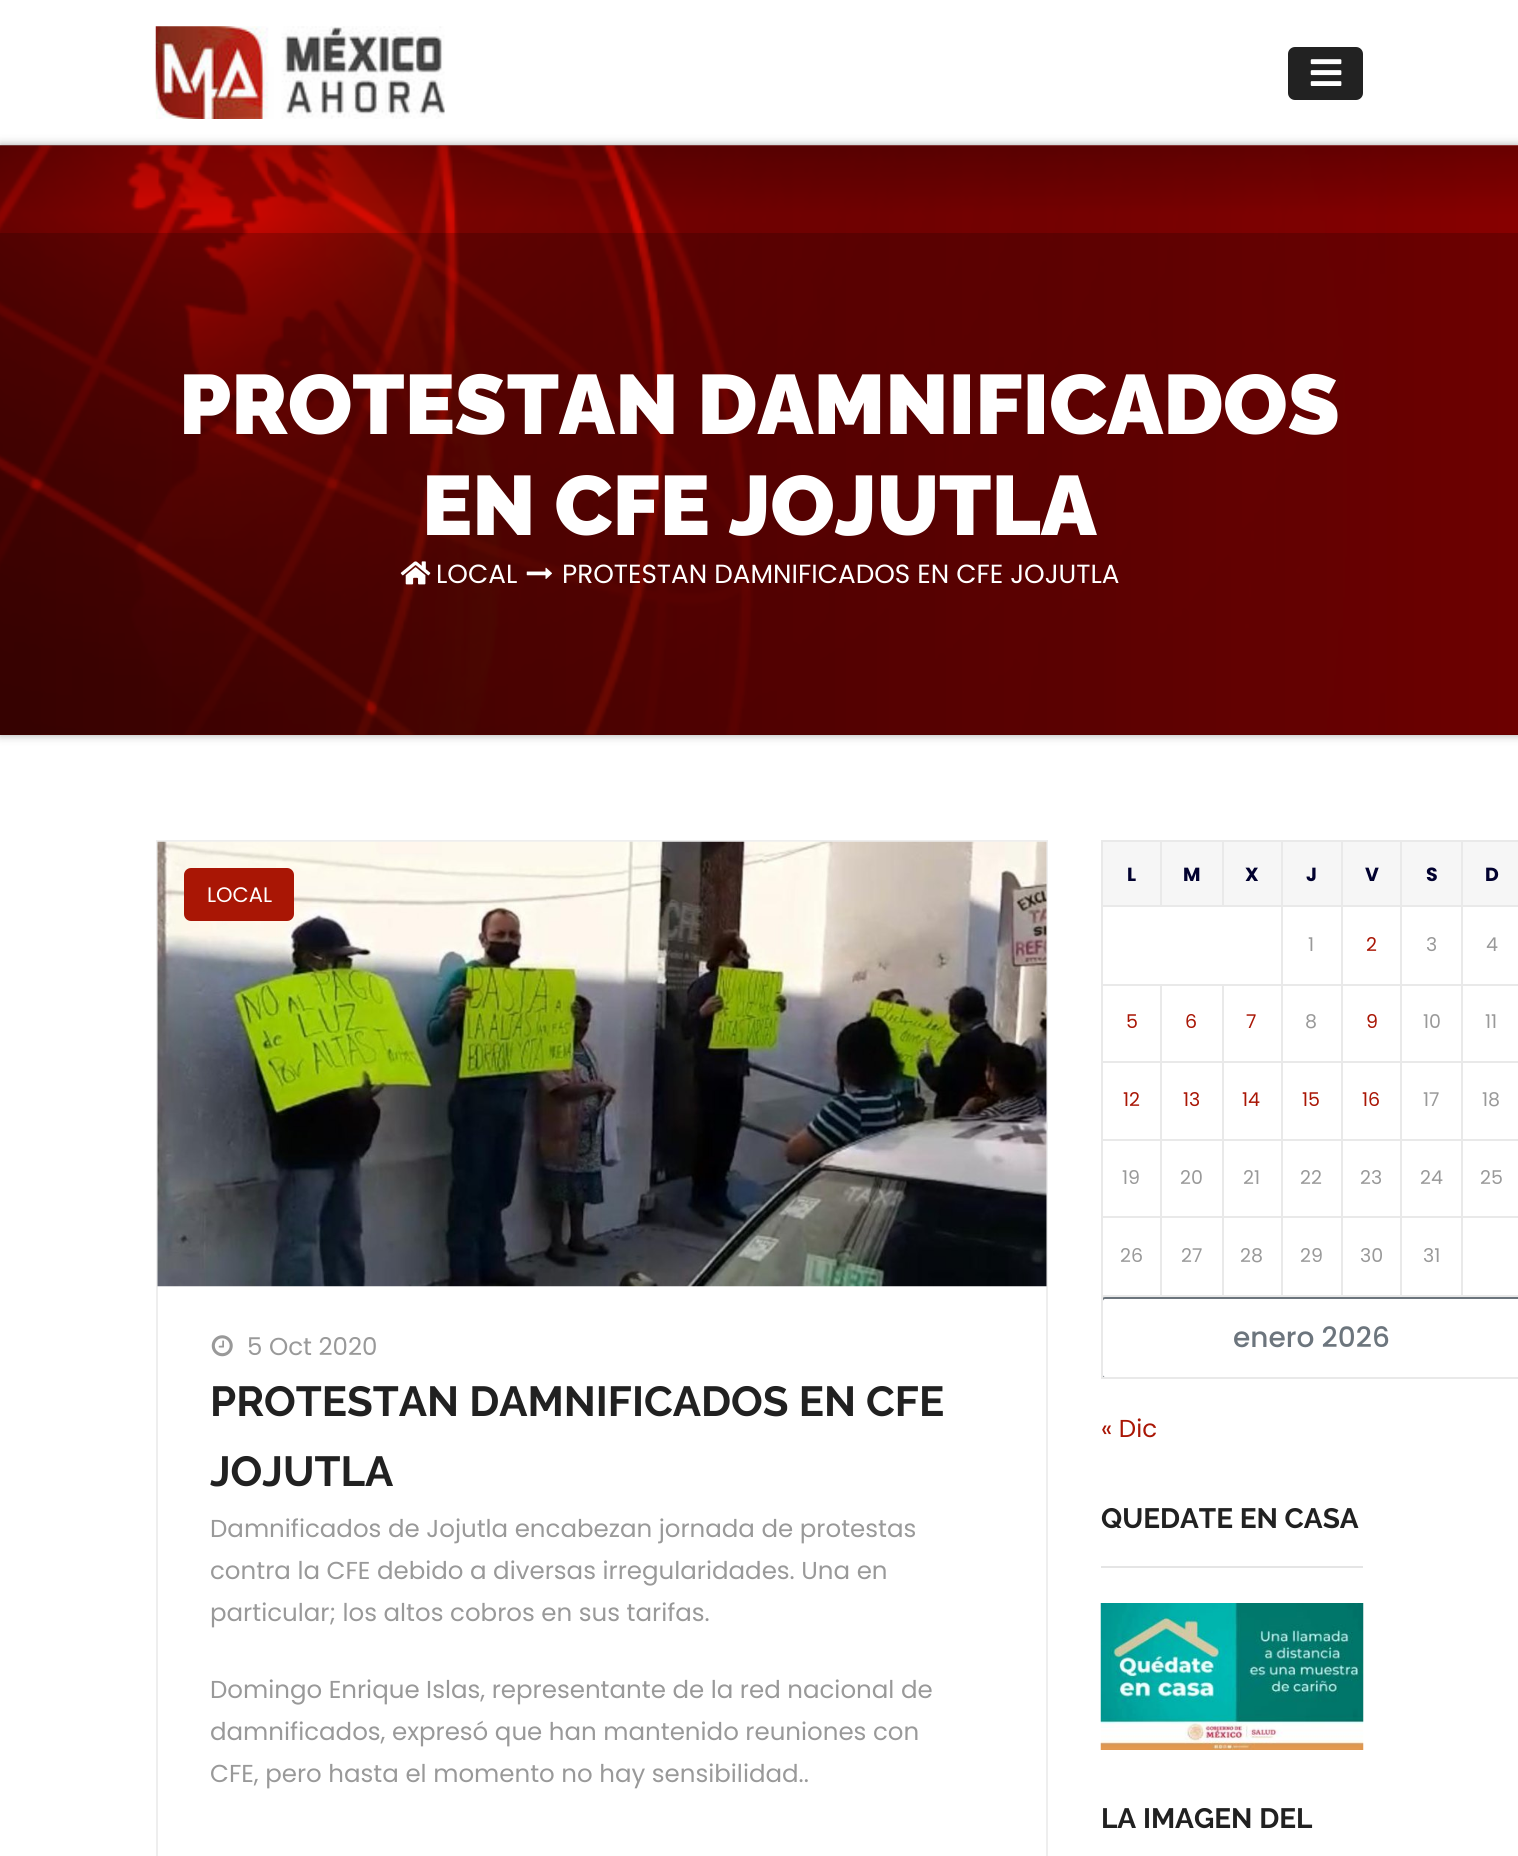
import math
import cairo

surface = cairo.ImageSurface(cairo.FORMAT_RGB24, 1518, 1856)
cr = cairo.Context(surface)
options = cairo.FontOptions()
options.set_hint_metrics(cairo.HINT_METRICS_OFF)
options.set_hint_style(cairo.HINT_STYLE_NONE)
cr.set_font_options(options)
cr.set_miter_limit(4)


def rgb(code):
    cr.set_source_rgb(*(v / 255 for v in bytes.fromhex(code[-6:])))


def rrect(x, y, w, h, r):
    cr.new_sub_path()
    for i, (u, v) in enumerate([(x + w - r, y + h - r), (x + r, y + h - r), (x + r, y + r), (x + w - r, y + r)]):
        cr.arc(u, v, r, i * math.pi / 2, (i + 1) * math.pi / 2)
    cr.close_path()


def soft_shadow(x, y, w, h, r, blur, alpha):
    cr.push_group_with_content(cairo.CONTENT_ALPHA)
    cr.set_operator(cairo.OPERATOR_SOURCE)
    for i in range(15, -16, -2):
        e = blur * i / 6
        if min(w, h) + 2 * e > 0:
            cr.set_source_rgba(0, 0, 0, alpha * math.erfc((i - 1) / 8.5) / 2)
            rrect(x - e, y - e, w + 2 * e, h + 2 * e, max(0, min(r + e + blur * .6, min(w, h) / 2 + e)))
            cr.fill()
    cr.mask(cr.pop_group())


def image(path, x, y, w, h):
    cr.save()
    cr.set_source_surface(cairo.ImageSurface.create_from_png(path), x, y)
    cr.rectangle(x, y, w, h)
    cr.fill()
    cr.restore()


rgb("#ffffff")
cr.paint()
image("img/1.png", 155, 26, 290, 93)
rgb("#222222")
rrect(1288, 47, 75, 53, 7)
cr.fill()
image("img/2.png", 1310, 59, 32, 27)
rgb("#aaaaaa")
soft_shadow(0, 145, 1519, 590, 0, 4.5, 1)
image("img/3.png", 0, 145, 1518, 590)
cr.set_source_rgba(0, 0, 0, 0.2)
cr.rectangle(0, 233, 1518, 502)
cr.fill()
image("img/4.png", 400, 561, 31, 24)
image("img/5.png", 526, 567, 26, 12)
cr.rectangle(157, 841, 890, 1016)
rgb("#eeeeee")
cr.stroke()
image("img/6.png", 157, 841, 890, 446)
rgb("#a91605")
rrect(184, 868, 110, 53, 7)
cr.fill()
image("img/7.png", 211, 1335, 22, 22)
rgb("#e9e9e9")
cr.rectangle(1101, 840, 417, 2)
cr.fill()
rrect(1102, 1298, 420, 80, 3)
rgb("#6c757d")
cr.stroke()
for x, y, w, h, color in [
    (1101, 1377, 417, 2, "#e9e9e9"),
    (1101, 840, 2, 539, "#e9e9e9"),
    (1103, 842, 57, 63, "#f6f6f6"),
    (1162, 842, 60, 63, "#f6f6f6"),
    (1461, 905, 57, 2, "#e9e9e9"),
    (1461, 984, 57, 2, "#e9e9e9"),
    (1461, 1061, 57, 2, "#e9e9e9"),
    (1461, 1139, 57, 2, "#e9e9e9"),
    (1461, 1216, 57, 2, "#e9e9e9"),
    (1461, 1295, 57, 2, "#e9e9e9"),
    (1461, 1216, 2, 81, "#e9e9e9"),
    (1400, 1216, 63, 2, "#e9e9e9"),
    (1461, 1139, 2, 79, "#e9e9e9"),
    (1400, 1139, 63, 2, "#e9e9e9"),
    (1461, 1061, 2, 80, "#e9e9e9"),
    (1400, 1061, 63, 2, "#e9e9e9"),
    (1461, 984, 2, 78, "#e9e9e9"),
    (1400, 984, 63, 2, "#e9e9e9"),
    (1461, 905, 2, 80, "#e9e9e9"),
    (1400, 905, 63, 2, "#e9e9e9"),
    (1400, 1295, 63, 2, "#e9e9e9"),
    (1400, 1216, 2, 81, "#e9e9e9"),
    (1341, 1216, 61, 2, "#e9e9e9"),
    (1400, 1139, 2, 79, "#e9e9e9"),
    (1341, 1139, 61, 2, "#e9e9e9"),
    (1400, 1061, 2, 80, "#e9e9e9"),
    (1341, 1061, 61, 2, "#e9e9e9"),
    (1400, 984, 2, 78, "#e9e9e9"),
    (1341, 984, 61, 2, "#e9e9e9"),
    (1400, 905, 2, 80, "#e9e9e9"),
    (1341, 905, 61, 2, "#e9e9e9"),
    (1341, 1295, 61, 2, "#e9e9e9"),
    (1341, 1216, 2, 81, "#e9e9e9"),
    (1281, 1216, 61, 2, "#e9e9e9"),
    (1341, 1139, 2, 79, "#e9e9e9"),
    (1281, 1139, 61, 2, "#e9e9e9"),
    (1341, 1061, 2, 80, "#e9e9e9"),
    (1281, 1061, 61, 2, "#e9e9e9"),
    (1341, 984, 2, 78, "#e9e9e9"),
    (1281, 984, 61, 2, "#e9e9e9"),
    (1341, 905, 2, 80, "#e9e9e9"),
    (1281, 905, 61, 2, "#e9e9e9"),
    (1281, 1295, 61, 2, "#e9e9e9"),
    (1281, 1216, 2, 81, "#e9e9e9"),
    (1222, 1216, 61, 2, "#e9e9e9"),
    (1281, 1139, 2, 79, "#e9e9e9"),
    (1222, 1139, 61, 2, "#e9e9e9"),
    (1281, 1061, 2, 80, "#e9e9e9"),
    (1222, 1061, 61, 2, "#e9e9e9"),
    (1281, 984, 2, 78, "#e9e9e9"),
    (1222, 984, 61, 2, "#e9e9e9"),
    (1281, 905, 2, 80, "#e9e9e9"),
    (1101, 905, 182, 2, "#e9e9e9"),
    (1160, 840, 2, 67, "#e9e9e9"),
    (1224, 842, 57, 63, "#f6f6f6"),
    (1222, 840, 2, 67, "#e9e9e9"),
    (1283, 842, 58, 63, "#f6f6f6"),
    (1281, 840, 2, 67, "#e9e9e9"),
    (1343, 842, 57, 63, "#f6f6f6"),
    (1341, 840, 2, 67, "#e9e9e9"),
    (1402, 842, 59, 63, "#f6f6f6"),
    (1400, 840, 2, 67, "#e9e9e9"),
    (1463, 842, 55, 63, "#f6f6f6"),
    (1461, 840, 2, 67, "#e9e9e9"),
    (1222, 1295, 61, 2, "#e9e9e9"),
    (1222, 1216, 2, 81, "#e9e9e9"),
    (1160, 1216, 63, 2, "#e9e9e9"),
    (1222, 1139, 2, 79, "#e9e9e9"),
    (1160, 1139, 63, 2, "#e9e9e9"),
    (1222, 1061, 2, 80, "#e9e9e9"),
    (1160, 1061, 63, 2, "#e9e9e9"),
    (1222, 984, 2, 78, "#e9e9e9"),
    (1160, 984, 63, 2, "#e9e9e9"),
    (1160, 1295, 63, 2, "#e9e9e9"),
    (1160, 1216, 2, 81, "#e9e9e9"),
    (1101, 1216, 61, 2, "#e9e9e9"),
    (1160, 1139, 2, 79, "#e9e9e9"),
    (1101, 1139, 61, 2, "#e9e9e9"),
    (1160, 1061, 2, 80, "#e9e9e9"),
    (1101, 1061, 61, 2, "#e9e9e9"),
    (1160, 984, 2, 78, "#e9e9e9"),
    (1101, 984, 61, 2, "#e9e9e9"),
    (1101, 1295, 61, 2, "#e9e9e9"),
    (1101, 1566, 262, 2, "#e5e5e5"),
]:
    rgb(color)
    cr.rectangle(x, y, w, h)
    cr.fill()
image("img/8.png", 1100, 1603, 264, 147)
cr.select_font_face("Raleway Black")
cr.set_font_size(84)
rgb("#ffffff")
cr.move_to(179, 434)
cr.show_text("PROTESTAN DAMNIFICADOS")
cr.move_to(422, 535)
cr.show_text("EN CFE JOJUTLA")
cr.select_font_face("Poppins")
cr.set_font_size(26.25)
cr.move_to(436, 583)
cr.show_text("LOCAL")
cr.move_to(562, 583)
cr.show_text("PROTESTAN DAMNIFICADOS EN CFE JOJUTLA")
cr.set_font_size(21)
cr.move_to(207, 902)
cr.show_text("LOCAL")
cr.set_font_size(24.5)
rgb("#999999")
cr.move_to(247, 1355)
cr.show_text("5 Oct 2020")
cr.select_font_face("Raleway", cairo.FONT_SLANT_NORMAL, cairo.FONT_WEIGHT_BOLD)
cr.set_font_size(42)
rgb("#212121")
cr.move_to(210, 1416)
cr.show_text("PROTESTAN DAMNIFICADOS EN CFE")
cr.move_to(210, 1486)
cr.show_text("JOJUTLA")
cr.select_font_face("Poppins")
cr.set_font_size(24.5)
rgb("#999999")
for x, y, s in [
    (210, 1537, "Damnificados de Jojutla encabezan jornada de protestas"),
    (210, 1579, "contra la CFE debido a diversas irregularidades. Una en"),
    (210, 1621, "particular; los altos cobros en sus tarifas."),
    (210, 1698, "Domingo Enrique Islas, representante de la red nacional de"),
    (210, 1740, "damnificados, expresó que han mantenido reuniones con"),
    (210, 1782, "CFE, pero hasta el momento no hay sensibilidad.."),
]:
    cr.move_to(x, y)
    cr.show_text(s)
cr.select_font_face("Poppins", cairo.FONT_SLANT_NORMAL, cairo.FONT_WEIGHT_BOLD)
cr.set_font_size(19)
rgb("#01012f")
for x, y, s in [
    (1127, 881, "L"),
    (1183, 881, "M"),
    (1245, 881, "X"),
    (1306, 881, "J"),
    (1365, 881, "V"),
    (1426, 881, "S"),
    (1485, 881, "D"),
]:
    cr.move_to(x, y)
    cr.show_text(s)
cr.select_font_face("Poppins")
rgb("#999999")
cr.move_to(1308, 951)
cr.show_text("1")
rgb("#a91605")
cr.move_to(1366, 951)
cr.show_text("2")
rgb("#999999")
cr.move_to(1426, 951)
cr.show_text("3")
cr.move_to(1486, 951)
cr.show_text("4")
rgb("#a91605")
for x, y, s in [
    (1126, 1028, "5"),
    (1185, 1028, "6"),
    (1246, 1028, "7"),
]:
    cr.move_to(x, y)
    cr.show_text(s)
rgb("#999999")
cr.move_to(1305, 1028)
cr.show_text("8")
rgb("#a91605")
cr.move_to(1366, 1028)
cr.show_text("9")
rgb("#999999")
cr.move_to(1423, 1028)
cr.show_text("10")
cr.move_to(1485, 1028)
cr.show_text("11")
rgb("#a91605")
for x, y, s in [
    (1123, 1106, "12"),
    (1183, 1106, "13"),
    (1242, 1106, "14"),
    (1302, 1106, "15"),
    (1362, 1106, "16"),
]:
    cr.move_to(x, y)
    cr.show_text(s)
rgb("#999999")
for x, y, s in [
    (1423, 1106, "17"),
    (1482, 1106, "18"),
    (1122, 1184, "19"),
    (1180, 1184, "20"),
    (1243, 1184, "21"),
    (1300, 1184, "22"),
    (1360, 1184, "23"),
    (1420, 1184, "24"),
    (1480, 1184, "25"),
    (1120, 1262, "26"),
    (1181, 1262, "27"),
    (1240, 1262, "28"),
    (1300, 1262, "29"),
    (1360, 1262, "30"),
    (1423, 1262, "31"),
]:
    cr.move_to(x, y)
    cr.show_text(s)
cr.select_font_face("Poppins Medium")
cr.set_font_size(28)
rgb("#6c757d")
cr.move_to(1233, 1347)
cr.show_text("enero 2026")
cr.select_font_face("Poppins")
cr.set_font_size(24.5)
rgb("#a91605")
cr.move_to(1101, 1437)
cr.show_text("« Dic")
cr.select_font_face("Raleway", cairo.FONT_SLANT_NORMAL, cairo.FONT_WEIGHT_BOLD)
cr.set_font_size(28)
rgb("#212121")
cr.move_to(1101, 1528)
cr.show_text("QUEDATE EN CASA")
cr.move_to(1101, 1828)
cr.show_text("LA IMAGEN DEL")
surface.write_to_png("page.png")
